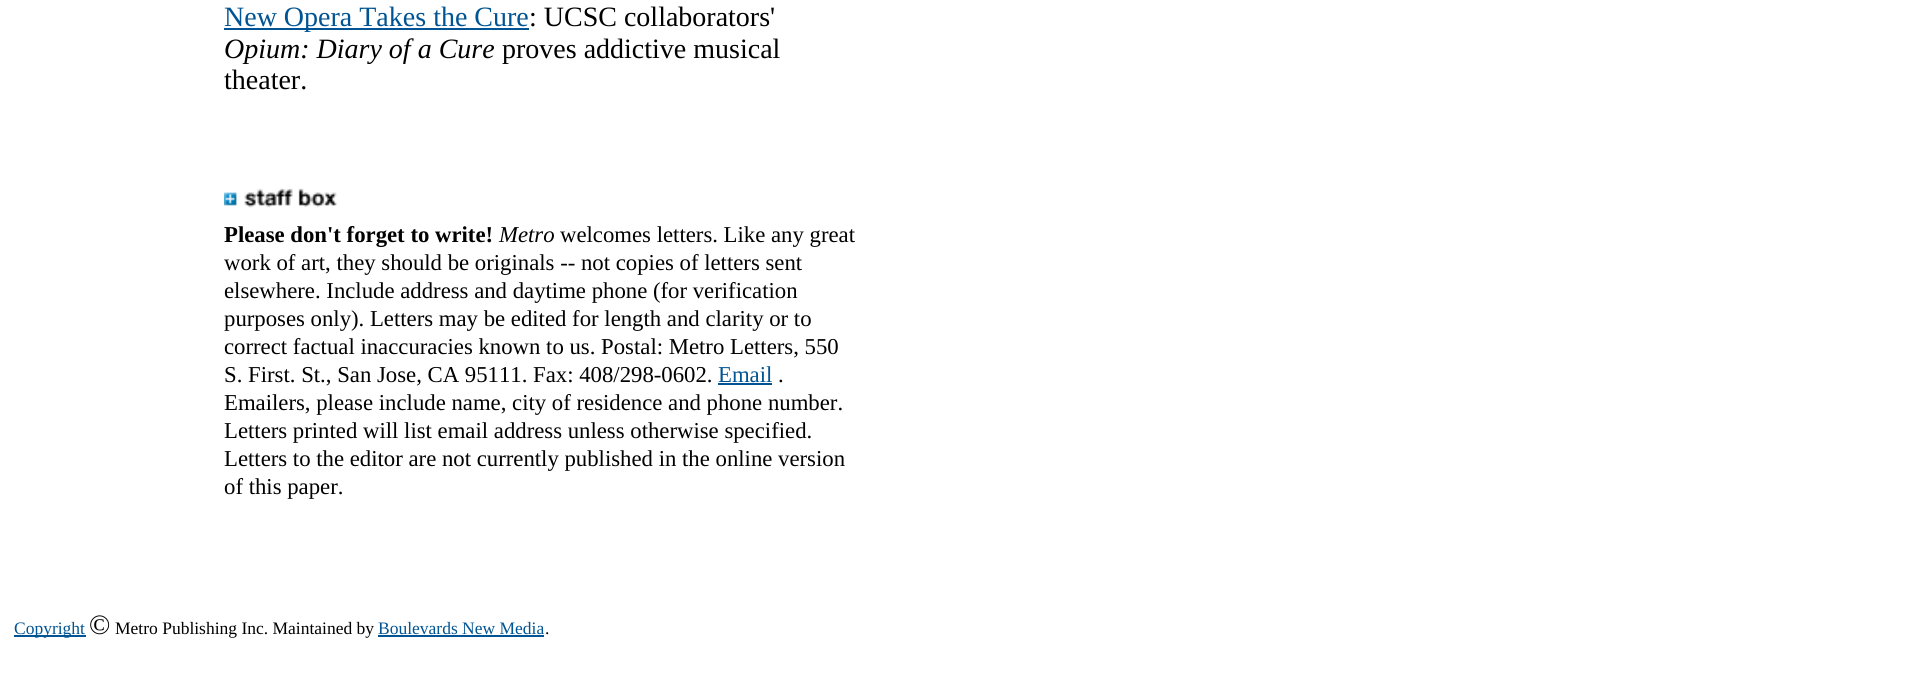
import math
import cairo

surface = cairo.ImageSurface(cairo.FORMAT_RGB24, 1918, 682)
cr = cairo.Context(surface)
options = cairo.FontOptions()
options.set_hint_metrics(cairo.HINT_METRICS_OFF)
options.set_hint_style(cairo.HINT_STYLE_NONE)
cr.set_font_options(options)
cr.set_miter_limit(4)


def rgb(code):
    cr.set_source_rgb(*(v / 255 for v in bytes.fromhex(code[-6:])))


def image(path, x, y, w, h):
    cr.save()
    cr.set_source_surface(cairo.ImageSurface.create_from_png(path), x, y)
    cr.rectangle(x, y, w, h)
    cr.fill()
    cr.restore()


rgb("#ffffff")
cr.paint()
rgb("#005493")
cr.rectangle(224, 28, 305, 2)
cr.fill()
image("img/1.png", 224, 188, 113, 20)
for x, y, w, h, color in [
    (718, 383, 54, 2, "#005493"),
    (14, 635, 72, 2, "#005493"),
    (378, 635, 166, 2, "#005493"),
]:
    rgb(color)
    cr.rectangle(x, y, w, h)
    cr.fill()
cr.select_font_face("Liberation Serif")
cr.set_font_size(28)
cr.move_to(224, 26)
cr.show_text("New Opera Takes the Cure")
rgb("#000000")
cr.move_to(529, 26)
cr.show_text(": UCSC collaborators'")
cr.select_font_face("Liberation Serif", cairo.FONT_SLANT_ITALIC)
cr.move_to(224, 58)
cr.show_text("Opium: Diary of a Cure")
cr.select_font_face("Liberation Serif")
cr.move_to(502, 58)
cr.show_text("proves addictive musical")
cr.move_to(224, 89)
cr.show_text("theater.")
cr.select_font_face("Liberation Serif", cairo.FONT_SLANT_NORMAL, cairo.FONT_WEIGHT_BOLD)
cr.set_font_size(22.75)
cr.move_to(224, 242)
cr.show_text("Please don't forget to write!")
cr.select_font_face("Liberation Serif", cairo.FONT_SLANT_ITALIC)
cr.move_to(499, 242)
cr.show_text("Metro")
cr.select_font_face("Liberation Serif")
for x, y, s in [
    (560, 242, "welcomes letters. Like any great"),
    (224, 270, "work of art, they should be originals -- not copies of letters sent"),
    (224, 298, "elsewhere. Include address and daytime phone (for verification"),
    (224, 326, "purposes only). Letters may be edited for length and clarity or to"),
    (224, 354, "correct factual inaccuracies known to us. Postal: Metro Letters, 550"),
    (224, 382, "S. First. St., San Jose, CA 95111. Fax: 408/298-0602."),
]:
    cr.move_to(x, y)
    cr.show_text(s)
rgb("#005493")
cr.move_to(718, 382)
cr.show_text("Email")
rgb("#000000")
for x, y, s in [
    (778, 382, "."),
    (224, 410, "Emailers, please include name, city of residence and phone number."),
    (224, 438, "Letters printed will list email address unless otherwise specified."),
    (224, 466, "Letters to the editor are not currently published in the online version"),
    (224, 494, "of this paper."),
]:
    cr.move_to(x, y)
    cr.show_text(s)
cr.set_font_size(17.5)
rgb("#005493")
cr.move_to(14, 634)
cr.show_text("Copyright")
cr.set_font_size(28)
rgb("#000000")
cr.move_to(89, 634)
cr.show_text("©")
cr.set_font_size(17.5)
cr.move_to(115, 634)
cr.show_text("Metro Publishing Inc. Maintained by")
rgb("#005493")
cr.move_to(378, 634)
cr.show_text("Boulevards New Media")
rgb("#000000")
cr.move_to(545, 634)
cr.show_text(".")
surface.write_to_png("page.png")
